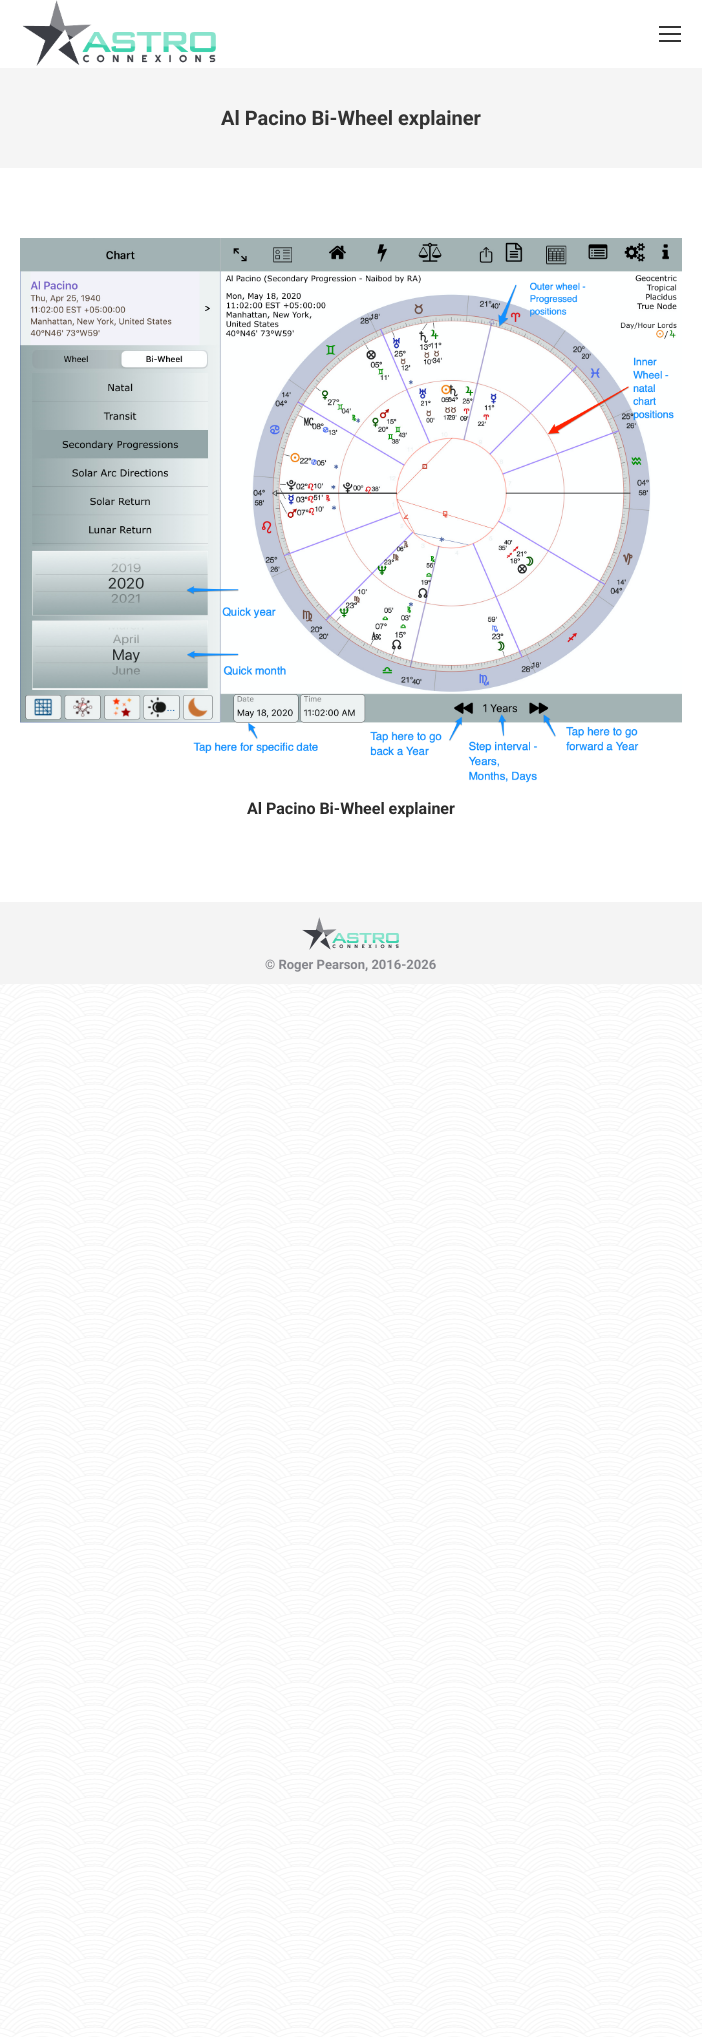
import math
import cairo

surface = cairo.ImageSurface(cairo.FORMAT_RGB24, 702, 2037)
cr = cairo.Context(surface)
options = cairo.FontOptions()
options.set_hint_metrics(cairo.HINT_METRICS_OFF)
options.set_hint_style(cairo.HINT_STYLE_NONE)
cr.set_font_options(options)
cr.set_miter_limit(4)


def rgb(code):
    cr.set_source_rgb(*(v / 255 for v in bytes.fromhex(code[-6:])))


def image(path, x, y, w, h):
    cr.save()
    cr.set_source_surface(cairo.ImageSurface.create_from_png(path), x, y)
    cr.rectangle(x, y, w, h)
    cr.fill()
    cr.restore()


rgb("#ffffff")
cr.paint()
image("img/1.png", 0, 984, 702, 1053)
image("img/2.png", 22, 0, 194, 66)
for x, y, w, h, color in [
    (659, 26, 22, 2, "#333333"),
    (659, 33, 22, 2, "#333333"),
    (659, 40, 22, 2, "#333333"),
    (0, 68, 702, 100, "#f5f5f5"),
]:
    rgb(color)
    cr.rectangle(x, y, w, h)
    cr.fill()
image("img/3.png", 20, 238, 662, 545)
rgb("#f4f4f4")
cr.rectangle(0, 902, 702, 82)
cr.fill()
image("img/4.png", 302, 917, 97, 33)
cr.select_font_face("Roboto", cairo.FONT_SLANT_NORMAL, cairo.FONT_WEIGHT_BOLD)
cr.set_font_size(20)
rgb("#333333")
cr.move_to(221, 125)
cr.show_text("Al Pacino Bi-Wheel explainer")
cr.set_font_size(16)
rgb("#2b2b2b")
cr.move_to(247, 814)
cr.show_text("Al Pacino Bi-Wheel explainer")
cr.set_font_size(13)
rgb("#85868c")
cr.move_to(265, 969)
cr.show_text("© Roger Pearson, 2016-2026")
surface.write_to_png("page.png")
